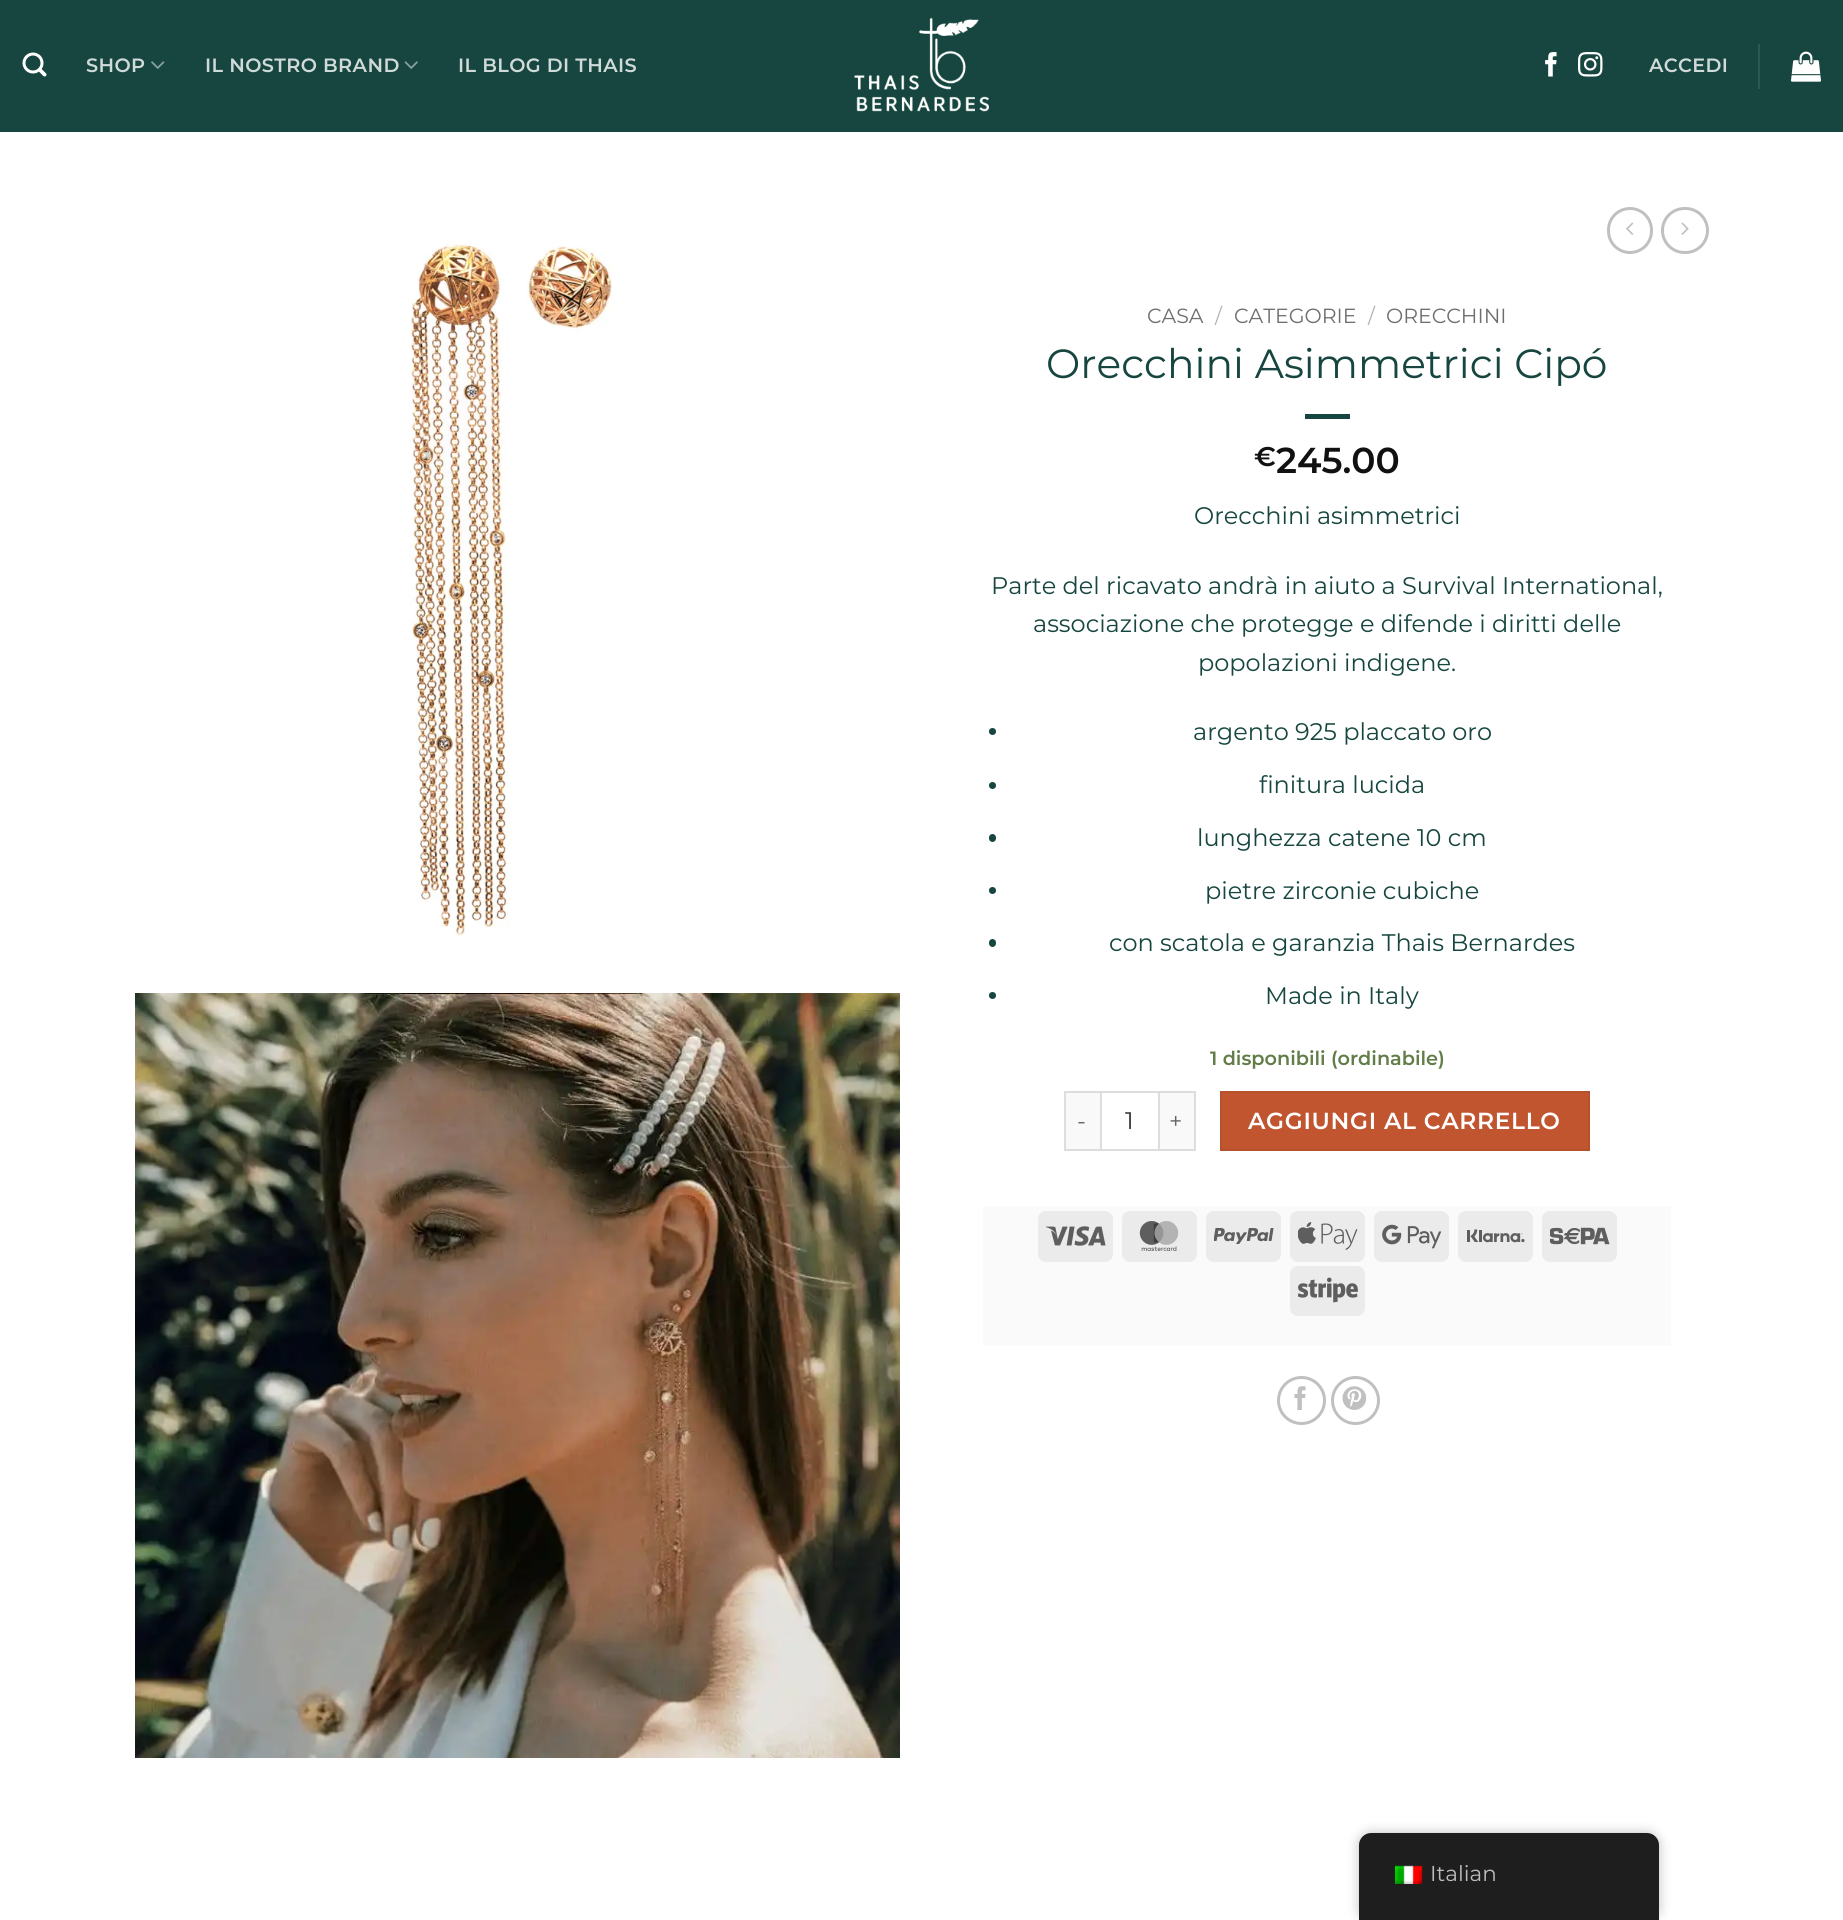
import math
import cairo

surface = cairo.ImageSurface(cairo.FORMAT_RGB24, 1843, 1920)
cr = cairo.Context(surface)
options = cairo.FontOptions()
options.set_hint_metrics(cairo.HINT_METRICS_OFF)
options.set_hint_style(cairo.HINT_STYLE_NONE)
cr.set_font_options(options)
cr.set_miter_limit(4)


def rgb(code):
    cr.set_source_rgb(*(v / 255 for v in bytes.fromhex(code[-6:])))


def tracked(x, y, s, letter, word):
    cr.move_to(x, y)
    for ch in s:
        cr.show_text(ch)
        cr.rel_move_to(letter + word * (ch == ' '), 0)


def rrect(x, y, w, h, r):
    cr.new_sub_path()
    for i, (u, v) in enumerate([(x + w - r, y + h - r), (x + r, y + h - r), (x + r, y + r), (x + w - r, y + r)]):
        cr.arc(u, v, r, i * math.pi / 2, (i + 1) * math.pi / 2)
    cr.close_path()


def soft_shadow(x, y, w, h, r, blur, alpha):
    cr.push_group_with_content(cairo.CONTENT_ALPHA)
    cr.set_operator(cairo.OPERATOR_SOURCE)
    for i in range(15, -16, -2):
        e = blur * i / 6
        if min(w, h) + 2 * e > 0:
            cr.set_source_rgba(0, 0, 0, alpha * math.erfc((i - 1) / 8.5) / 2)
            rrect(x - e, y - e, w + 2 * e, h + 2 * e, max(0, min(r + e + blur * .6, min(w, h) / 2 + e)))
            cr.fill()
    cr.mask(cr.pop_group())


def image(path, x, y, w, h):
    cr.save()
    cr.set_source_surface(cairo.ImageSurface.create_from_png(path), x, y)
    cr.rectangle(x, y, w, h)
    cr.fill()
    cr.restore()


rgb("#ffffff")
cr.paint()
rgb("#16463f")
cr.rectangle(0, 0, 1843, 132)
cr.fill()
image("img/1.png", 22, 52, 25, 25)
image("img/2.png", 151, 61, 14, 8)
image("img/3.png", 404, 61, 14, 8)
image("img/4.png", 854, 17, 135, 95)
image("img/5.png", 1545, 52, 12, 25)
image("img/6.png", 1578, 52, 25, 25)
rgb("#2d5952")
cr.rectangle(1758, 44, 2, 45)
cr.fill()
image("img/7.png", 1791, 51, 30, 31)
image("img/8.png", 410, 244, 203, 693)
image("img/9.png", 135, 993, 765, 765)
rrect(1608.5, 208.5, 43, 44, 21.5)
rgb("#c0c0c0")
cr.set_line_width(3)
cr.stroke()
image("img/10.png", 1626, 222, 8, 13)
rrect(1662.5, 208.5, 45, 44, 22)
cr.stroke()
image("img/11.png", 1681, 222, 8, 13)
rgb("#16463f")
cr.rectangle(1305, 414, 45, 5)
cr.fill()
cr.arc(992.5, 731.5, 3.5, 0, 2 * math.pi)
cr.fill()
cr.arc(992.5, 785.5, 3.5, 0, 2 * math.pi)
cr.fill()
rrect(989, 834, 7, 8, 3.5)
cr.fill()
cr.arc(992.5, 890.5, 3.5, 0, 2 * math.pi)
cr.fill()
rrect(989, 939, 7, 8, 3.5)
cr.fill()
cr.arc(992.5, 995.5, 3.5, 0, 2 * math.pi)
cr.fill()
for x, y, w, h, color in [
    (1066, 1093, 34, 56, "#f9f9f9"),
    (1064, 1091, 36, 2, "#dddddd"),
    (1064, 1149, 36, 2, "#dddddd"),
    (1064, 1091, 2, 60, "#dddddd"),
]:
    rgb(color)
    cr.rectangle(x, y, w, h)
    cr.fill()
cr.rectangle(1101, 1092, 58, 58)
cr.set_line_width(2)
cr.stroke()
for x, y, w, h, color in [
    (1160, 1093, 34, 56, "#f9f9f9"),
    (1160, 1091, 36, 2, "#dddddd"),
    (1194, 1091, 2, 60, "#dddddd"),
    (1160, 1149, 36, 2, "#dddddd"),
]:
    rgb(color)
    cr.rectangle(x, y, w, h)
    cr.fill()
rgb("#c05530")
cr.rectangle(1221, 1092, 368, 58)
cr.fill_preserve()
rgb("#b6512e")
cr.stroke()
rgb("#fafafa")
cr.rectangle(983, 1206, 688, 140)
cr.fill()
rgb("#ebebeb")
rrect(1038, 1211, 75, 51, 8)
cr.fill()
image("img/12.png", 1046, 1226, 60, 20)
rrect(1122, 1211, 75, 51, 8)
cr.fill()
image("img/13.png", 1139, 1221, 40, 30)
rrect(1206, 1211, 75, 51, 8)
cr.fill()
image("img/14.png", 1214, 1228, 60, 16)
rrect(1290, 1211, 75, 51, 8)
cr.fill()
image("img/15.png", 1298, 1222, 60, 28)
rrect(1374, 1211, 75, 51, 8)
cr.fill()
image("img/16.png", 1382, 1224, 60, 25)
rrect(1458, 1211, 75, 51, 8)
cr.fill()
image("img/17.png", 1467, 1229, 58, 14)
rrect(1542, 1211, 75, 51, 8)
cr.fill()
image("img/18.png", 1550, 1227, 60, 18)
rrect(1290, 1266, 75, 50, 8)
cr.fill()
image("img/19.png", 1298, 1277, 60, 26)
cr.arc(1301.5, 1400.5, 23, 0, 2 * math.pi)
rgb("#c0c0c0")
cr.set_line_width(3)
cr.stroke()
image("img/20.png", 1294, 1386, 12, 24)
cr.arc(1355.5, 1400.5, 23, 0, 2 * math.pi)
cr.stroke()
image("img/21.png", 1342, 1386, 25, 24)
rgb("#000000")
soft_shadow(1359, 1833, 300, 87, 12, 6, 0.25)
rgb("#1e1e1e")
cr.new_path()
cr.move_to(1371, 1833)
cr.line_to(1647, 1833)
cr.curve_to(1653.5, 1833, 1659, 1838.5, 1659, 1845)
cr.line_to(1659, 1920)
cr.line_to(1359, 1920)
cr.line_to(1359, 1845)
cr.curve_to(1359, 1838.5, 1364.5, 1833, 1371, 1833)
cr.close_path()
cr.fill()
image("img/22.png", 1395, 1865, 28, 19)
cr.select_font_face("Montserrat SemiBold")
cr.set_font_size(19.25)
rgb("#d0dad9")
for x, y, s in [
    (86, 72, "SHOP"),
    (205, 72, "IL NOSTRO BRAND"),
    (458, 72, "IL BLOG DI THAIS"),
    (1649, 72, "ACCEDI"),
]:
    tracked(x, y, s, 0.4, 0)
cr.select_font_face("Montserrat Thin")
cr.set_font_size(20.5)
rgb("#6e6e6e")
cr.move_to(1147, 323)
cr.show_text("CASA")
rgb("#b2b2b2")
cr.move_to(1215, 323)
cr.show_text("/")
rgb("#6e6e6e")
cr.move_to(1234, 323)
cr.show_text("CATEGORIE")
rgb("#b2b2b2")
cr.move_to(1368, 323)
cr.show_text("/")
rgb("#6e6e6e")
cr.move_to(1386, 323)
cr.show_text("ORECCHINI")
cr.set_font_size(40.75)
rgb("#16463f")
cr.move_to(1046, 378)
cr.show_text("Orecchini Asimmetrici Cipó")
cr.select_font_face("Montserrat SemiBold")
cr.set_font_size(27)
rgb("#111111")
cr.move_to(1254, 466)
cr.show_text("€")
cr.set_font_size(36)
cr.move_to(1276, 473)
cr.show_text("245.00")
cr.select_font_face("Montserrat Thin")
cr.set_font_size(24)
rgb("#16463f")
for x, y, s in [
    (1194, 524, "Orecchini asimmetrici"),
    (991, 594, "Parte del ricavato andrà in aiuto a Survival International,"),
    (1033, 632, "associazione che protegge e difende i diritti delle"),
    (1198, 671, "popolazioni indigene."),
    (1193, 740, "argento 925 placcato oro"),
    (1259, 793, "finitura lucida"),
    (1197, 846, "lunghezza catene 10 cm"),
    (1205, 899, "pietre zirconie cubiche"),
    (1109, 951, "con scatola e garanzia Thais Bernardes"),
    (1265, 1004, "Made in Italy"),
]:
    cr.move_to(x, y)
    cr.show_text(s)
cr.select_font_face("Montserrat SemiBold")
cr.set_font_size(19.25)
rgb("#627d47")
cr.move_to(1210, 1065)
cr.show_text("1 disponibili (ordinabile)")
cr.select_font_face("Montserrat Thin")
cr.set_font_size(23.25)
rgb("#666666")
tracked(1077, 1129, "-", 0.7, 0)
cr.set_font_size(24)
rgb("#333333")
cr.move_to(1125, 1129)
cr.show_text("1")
cr.set_font_size(23.25)
rgb("#666666")
tracked(1169, 1129, "+", 0.7, 0)
cr.select_font_face("Montserrat SemiBold")
rgb("#ffffff")
tracked(1248, 1129, "AGGIUNGI AL CARRELLO", 0.7, 0)
cr.select_font_face("Montserrat Thin")
cr.set_font_size(21.5)
rgb("#bdbdbd")
cr.move_to(1430, 1881)
cr.show_text("Italian")
surface.write_to_png("page.png")
